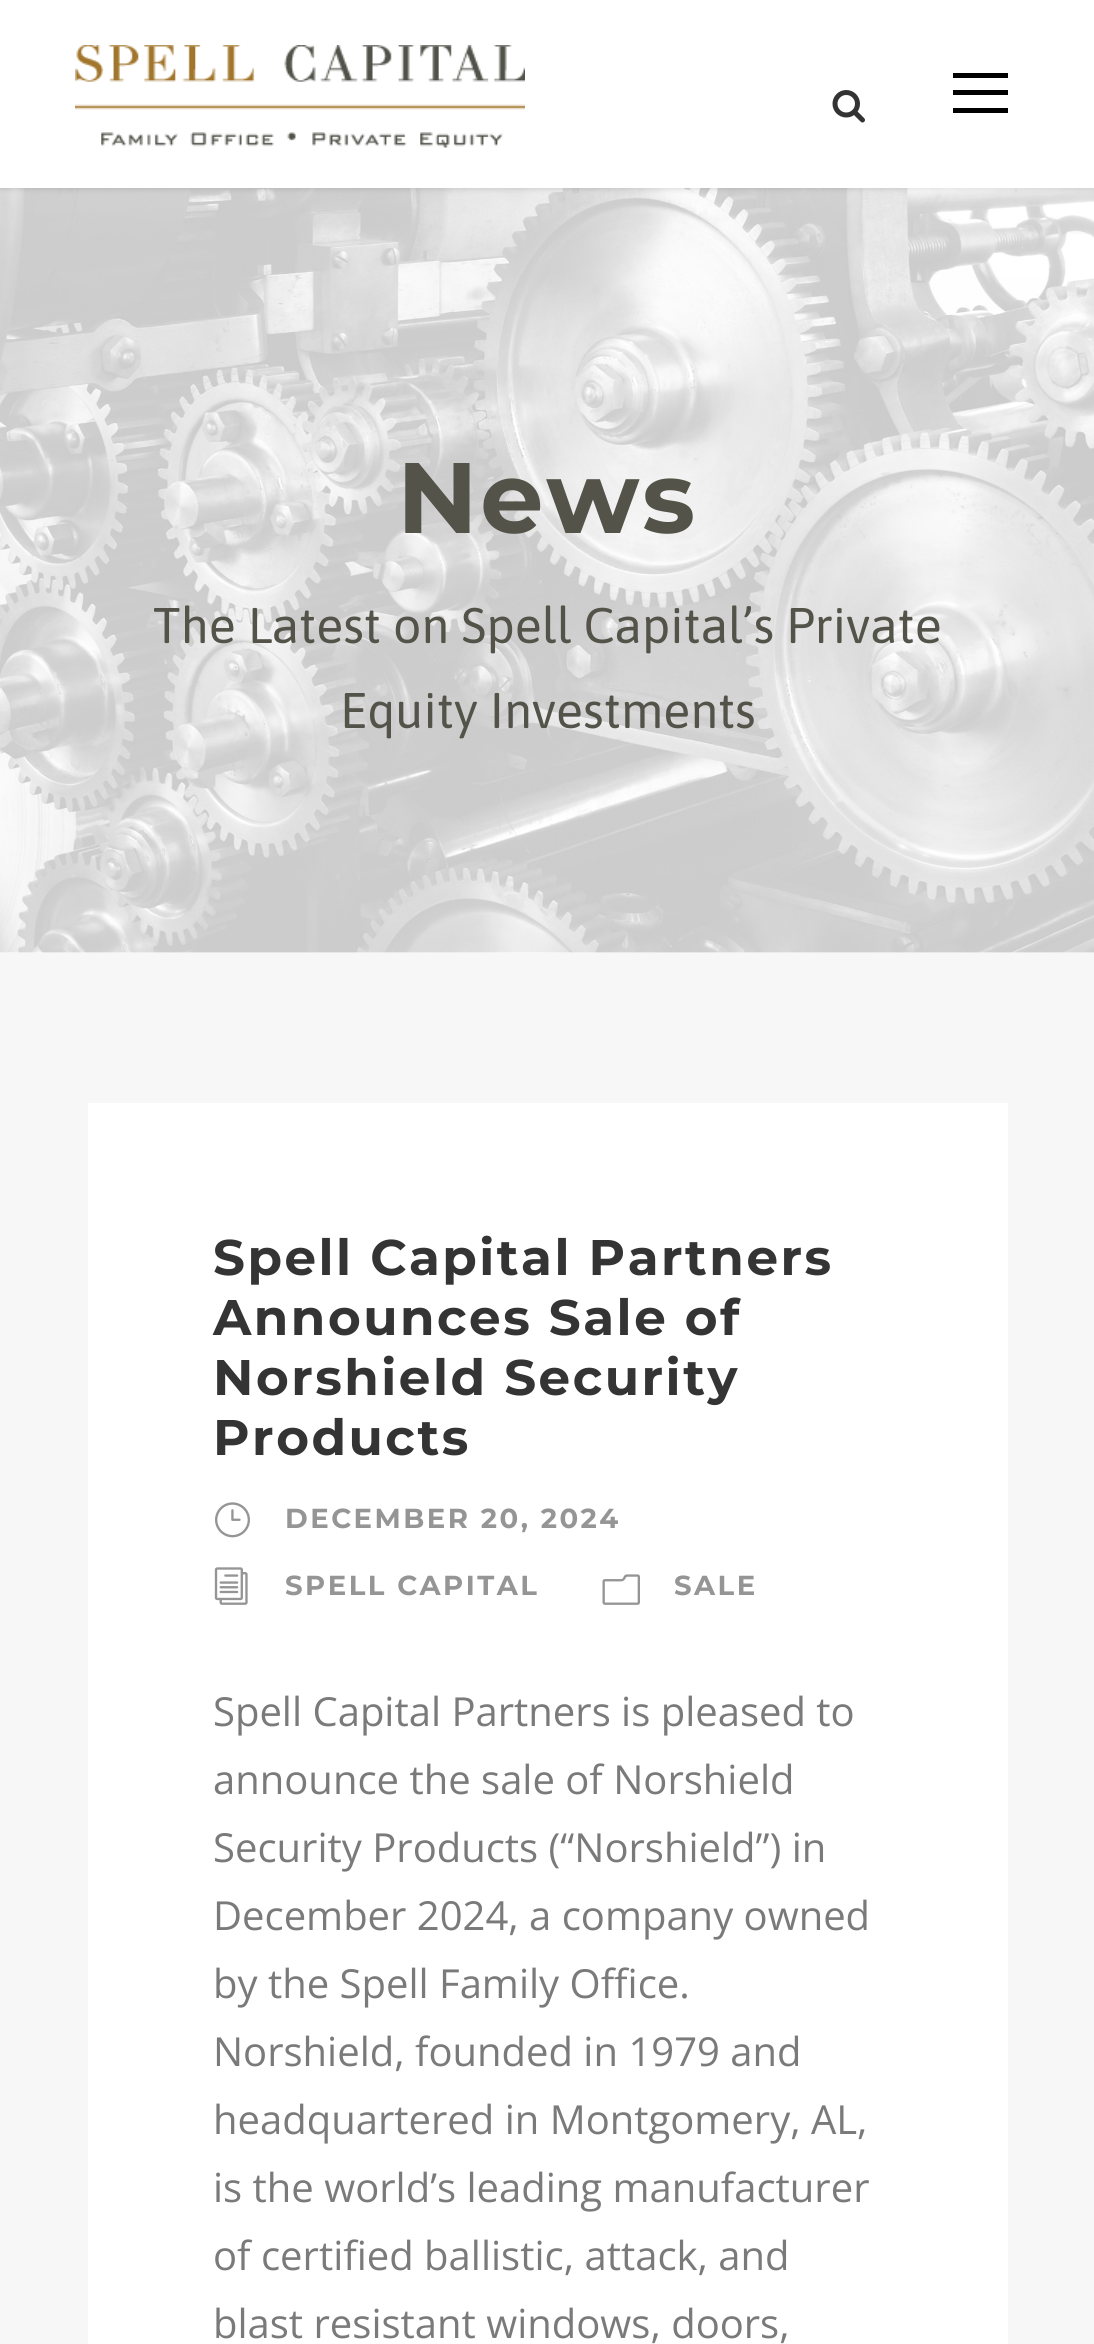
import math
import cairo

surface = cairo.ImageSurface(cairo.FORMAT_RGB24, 1094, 2344)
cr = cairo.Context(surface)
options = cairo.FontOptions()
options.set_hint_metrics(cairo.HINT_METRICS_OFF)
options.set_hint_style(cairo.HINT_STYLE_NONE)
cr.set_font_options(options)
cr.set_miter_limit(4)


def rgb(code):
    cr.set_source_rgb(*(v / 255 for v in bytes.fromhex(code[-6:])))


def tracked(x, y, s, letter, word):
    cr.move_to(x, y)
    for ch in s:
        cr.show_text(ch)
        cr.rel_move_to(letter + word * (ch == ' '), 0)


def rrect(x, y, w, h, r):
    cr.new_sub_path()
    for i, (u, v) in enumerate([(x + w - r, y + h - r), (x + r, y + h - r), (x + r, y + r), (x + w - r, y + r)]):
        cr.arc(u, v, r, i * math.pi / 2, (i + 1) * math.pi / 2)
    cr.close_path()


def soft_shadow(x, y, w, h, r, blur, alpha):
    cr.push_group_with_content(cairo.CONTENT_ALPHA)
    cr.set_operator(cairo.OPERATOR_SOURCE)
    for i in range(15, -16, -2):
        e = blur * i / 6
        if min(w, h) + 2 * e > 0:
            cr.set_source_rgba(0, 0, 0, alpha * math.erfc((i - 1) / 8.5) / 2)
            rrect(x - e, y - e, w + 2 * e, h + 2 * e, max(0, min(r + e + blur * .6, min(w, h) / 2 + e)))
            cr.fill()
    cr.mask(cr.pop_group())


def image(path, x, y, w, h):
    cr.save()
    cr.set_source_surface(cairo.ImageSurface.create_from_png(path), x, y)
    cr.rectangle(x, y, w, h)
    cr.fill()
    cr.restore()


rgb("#ffffff")
cr.paint()
image("img/3.png", 0, 188, 1094, 765)
rgb("#000000")
soft_shadow(0, 3, 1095, 187, 0, 2.5, 0.1)
rgb("#ffffff")
cr.rectangle(0, 0, 1094, 188)
cr.fill()
image("img/1.png", 75, 45, 450, 103)
image("img/2.png", 832, 90, 33, 33)
for x, y, w, h, color in [
    (953, 73, 55, 5, "#000000"),
    (953, 90, 55, 5, "#000000"),
    (953, 108, 55, 5, "#000000"),
    (0, 953, 1094, 1391, "#f7f7f7"),
    (88, 1103, 920, 1241, "#ffffff"),
]:
    rgb(color)
    cr.rectangle(x, y, w, h)
    cr.fill()
image("img/4.png", 215, 1502, 35, 36)
image("img/5.png", 214, 1567, 34, 38)
image("img/6.png", 602, 1574, 38, 31)
cr.select_font_face("Montserrat", cairo.FONT_SLANT_NORMAL, cairo.FONT_WEIGHT_BOLD)
cr.set_font_size(100)
rgb("#53534a")
tracked(397, 533, "News", 2.5, 0)
cr.select_font_face("Asap")
cr.set_font_size(50)
cr.move_to(153, 643)
cr.show_text("The Latest on Spell Capital’s Private")
cr.move_to(340, 728)
cr.show_text("Equity Investments")
cr.select_font_face("Montserrat", cairo.FONT_SLANT_NORMAL, cairo.FONT_WEIGHT_BOLD)
rgb("#343434")
for x, y, s in [
    (213, 1275, "Spell Capital Partners"),
    (213, 1335, "Announces Sale of"),
    (213, 1395, "Norshield Security"),
    (213, 1455, "Products"),
]:
    tracked(x, y, s, 2.5, 0)
cr.set_font_size(27.5)
rgb("#959595")
for x, y, s in [
    (285, 1528, "DECEMBER 20, 2024"),
    (285, 1595, "SPELL CAPITAL"),
    (674, 1595, "SALE"),
]:
    tracked(x, y, s, 2.5, 0)
cr.select_font_face("Open Sans")
cr.set_font_size(40)
rgb("#7a7a7a")
for x, y, s in [
    (213, 1726, "Spell Capital Partners is pleased to"),
    (213, 1794, "announce the sale of Norshield"),
    (213, 1862, "Security Products (“Norshield”) in"),
    (213, 1930, "December 2024, a company owned"),
    (213, 1998, "by the Spell Family Office."),
    (213, 2066, "Norshield, founded in 1979 and"),
    (213, 2134, "headquartered in Montgomery, AL,"),
    (213, 2202, "is the world’s leading manufacturer"),
    (213, 2270, "of certified ballistic, attack, and"),
    (213, 2338, "blast resistant windows, doors,"),
]:
    cr.move_to(x, y)
    cr.show_text(s)
surface.write_to_png("page.png")
